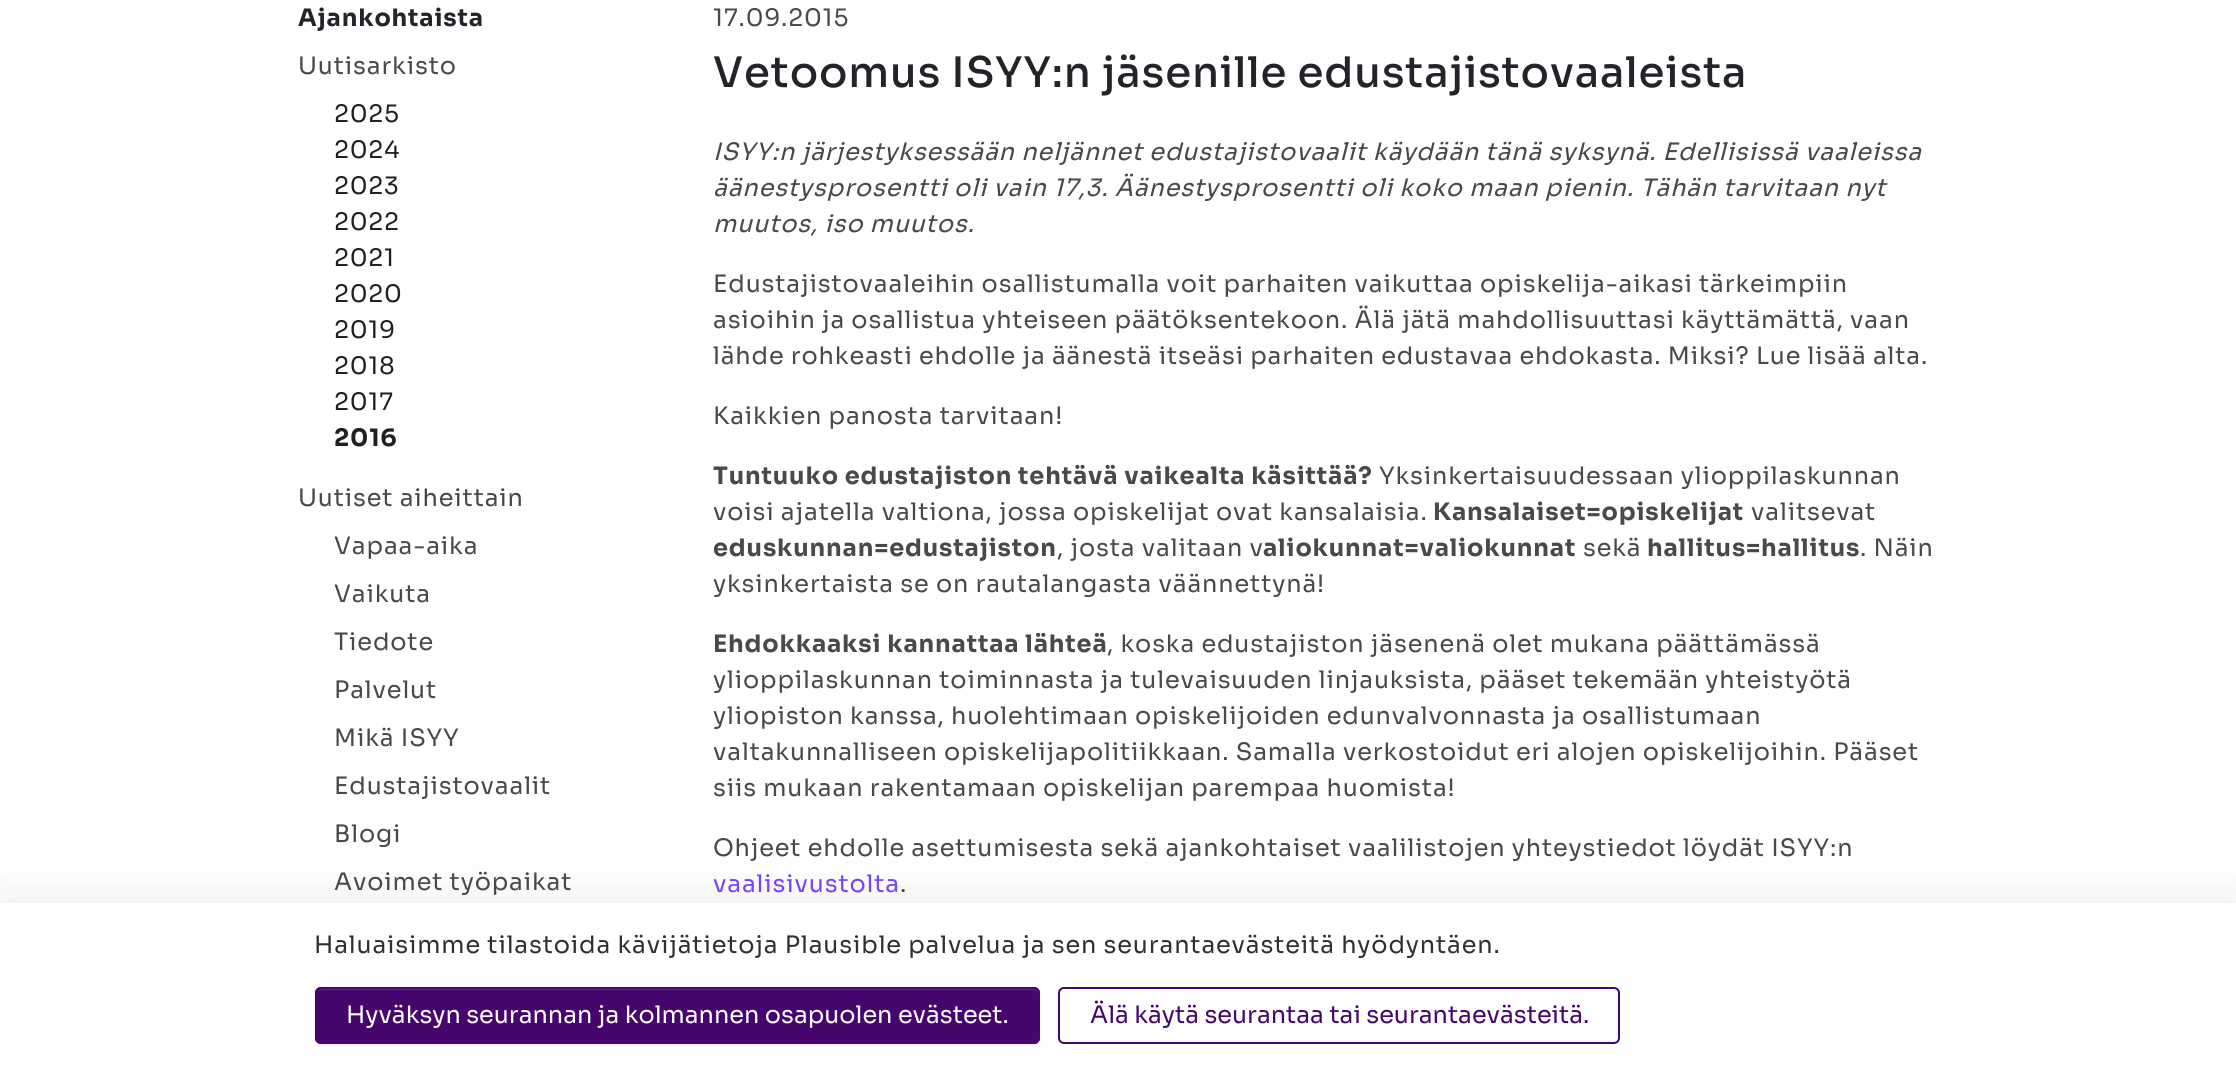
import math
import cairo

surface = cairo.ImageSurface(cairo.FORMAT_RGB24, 2236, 1079)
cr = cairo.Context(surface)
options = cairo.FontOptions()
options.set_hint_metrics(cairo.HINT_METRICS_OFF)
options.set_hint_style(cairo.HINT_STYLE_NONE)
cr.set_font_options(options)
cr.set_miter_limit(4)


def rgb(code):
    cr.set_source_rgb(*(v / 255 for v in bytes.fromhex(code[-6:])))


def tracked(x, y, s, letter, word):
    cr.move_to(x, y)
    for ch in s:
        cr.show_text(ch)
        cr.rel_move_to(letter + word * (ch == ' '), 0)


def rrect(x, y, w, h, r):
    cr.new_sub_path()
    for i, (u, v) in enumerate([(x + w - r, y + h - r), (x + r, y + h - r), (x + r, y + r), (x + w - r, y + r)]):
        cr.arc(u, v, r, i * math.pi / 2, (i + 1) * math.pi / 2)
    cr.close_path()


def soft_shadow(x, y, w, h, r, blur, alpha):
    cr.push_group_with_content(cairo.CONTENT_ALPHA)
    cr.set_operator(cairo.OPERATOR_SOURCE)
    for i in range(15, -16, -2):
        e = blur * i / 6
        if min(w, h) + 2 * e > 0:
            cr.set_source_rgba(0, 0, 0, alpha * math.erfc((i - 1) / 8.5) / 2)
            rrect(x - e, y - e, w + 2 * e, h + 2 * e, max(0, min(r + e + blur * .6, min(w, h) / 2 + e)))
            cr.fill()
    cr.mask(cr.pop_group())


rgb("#ffffff")
cr.paint()
rgb("#000000")
soft_shadow(0, 927, 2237, 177, 0, 36, 0.18)
rgb("#ffffff")
cr.rectangle(0, 903, 2236, 176)
cr.fill()
rgb("#000000")
soft_shadow(315, 989, 725, 57, 6, 1, 0.07)
rgb("#46066d")
rrect(315, 987, 725, 57, 6)
cr.fill()
rgb("#622b83")
cr.new_path()
cr.move_to(321, 990)
cr.line_to(1034, 990)
cr.curve_to(1036, 990, 1038, 992, 1038, 994)
cr.curve_to(1038, 991, 1036, 989, 1033, 989)
cr.line_to(322, 989)
cr.curve_to(320, 989, 319, 990, 318, 991)
cr.close_path()
cr.fill()
rrect(316, 988, 723, 55, 5)
rgb("#46066d")
cr.stroke()
rrect(1059, 988, 560, 55, 5)
cr.stroke()
cr.select_font_face("Sora", cairo.FONT_SLANT_NORMAL, cairo.FONT_WEIGHT_BOLD)
cr.set_font_size(24)
rgb("#222429")
tracked(298, 26, "Ajankohtaista", 0.85, 0)
cr.select_font_face("Sora")
rgb("#49494a")
tracked(298, 74, "Uutisarkisto", 0.85, 0)
rgb("#231f20")
for x, y, s in [
    (334, 122, "2025"),
    (334, 158, "2024"),
    (334, 194, "2023"),
    (334, 230, "2022"),
    (334, 266, "2021"),
    (334, 302, "2020"),
    (334, 338, "2019"),
    (334, 374, "2018"),
    (334, 410, "2017"),
]:
    tracked(x, y, s, 0.85, 0)
cr.select_font_face("Sora", cairo.FONT_SLANT_NORMAL, cairo.FONT_WEIGHT_BOLD)
tracked(334, 446, "2016", 0.85, 0)
cr.select_font_face("Sora")
rgb("#49494a")
for x, y, s in [
    (298, 506, "Uutiset aiheittain"),
    (334, 554, "Vapaa-aika"),
    (334, 602, "Vaikuta"),
    (334, 650, "Tiedote"),
    (334, 698, "Palvelut"),
    (334, 746, "Mikä ISYY"),
    (334, 794, "Edustajistovaalit"),
    (334, 842, "Blogi"),
    (334, 890, "Avoimet työpaikat"),
    (713, 26, "17.09.2015"),
]:
    tracked(x, y, s, 0.85, 0)
cr.select_font_face("Sora Medium")
cr.set_font_size(42)
rgb("#222429")
tracked(713, 87, "Vetoomus ISYY:n jäsenille edustajistovaaleista", 0.85, 0)
cr.select_font_face("Sora", cairo.FONT_SLANT_ITALIC)
cr.set_font_size(24)
rgb("#49494a")
for x, y, s in [
    (713, 160, "ISYY:n järjestyksessään neljännet edustajistovaalit käydään tänä syksynä. Edellisissä vaaleissa"),
    (713, 196, "äänestysprosentti oli vain 17,3. Äänestysprosentti oli koko maan pienin. Tähän tarvitaan nyt"),
    (713, 232, "muutos, iso muutos."),
]:
    tracked(x, y, s, 0.85, 0)
cr.select_font_face("Sora")
for x, y, s in [
    (713, 292, "Edustajistovaaleihin osallistumalla voit parhaiten vaikuttaa opiskelija-aikasi tärkeimpiin"),
    (713, 328, "asioihin ja osallistua yhteiseen päätöksentekoon. Älä jätä mahdollisuuttasi käyttämättä, vaan"),
    (713, 364, "lähde rohkeasti ehdolle ja äänestä itseäsi parhaiten edustavaa ehdokasta. Miksi? Lue lisää alta."),
    (713, 424, "Kaikkien panosta tarvitaan!"),
]:
    tracked(x, y, s, 0.85, 0)
cr.select_font_face("Sora", cairo.FONT_SLANT_NORMAL, cairo.FONT_WEIGHT_BOLD)
tracked(713, 484, "Tuntuuko edustajiston tehtävä vaikealta käsittää?", 0.85, 0)
cr.select_font_face("Sora")
tracked(1379, 484, "Yksinkertaisuudessaan ylioppilaskunnan", 0.85, 0)
tracked(713, 520, "voisi ajatella valtiona, jossa opiskelijat ovat kansalaisia.", 0.85, 0)
cr.select_font_face("Sora", cairo.FONT_SLANT_NORMAL, cairo.FONT_WEIGHT_BOLD)
tracked(1433, 520, "Kansalaiset=opiskelijat", 0.85, 0)
cr.select_font_face("Sora")
tracked(1751, 520, "valitsevat", 0.85, 0)
cr.select_font_face("Sora", cairo.FONT_SLANT_NORMAL, cairo.FONT_WEIGHT_BOLD)
tracked(713, 556, "eduskunnan=edustajiston", 0.85, 0)
cr.select_font_face("Sora")
tracked(1057, 556, ", josta valitaan v", 0.85, 0)
cr.select_font_face("Sora", cairo.FONT_SLANT_NORMAL, cairo.FONT_WEIGHT_BOLD)
tracked(1263, 556, "aliokunnat=valiokunnat", 0.85, 0)
cr.select_font_face("Sora")
tracked(1583, 556, "sekä", 0.85, 0)
cr.select_font_face("Sora", cairo.FONT_SLANT_NORMAL, cairo.FONT_WEIGHT_BOLD)
tracked(1647, 556, "hallitus=hallitus", 0.85, 0)
cr.select_font_face("Sora")
tracked(1860, 556, ". Näin", 0.85, 0)
tracked(713, 592, "yksinkertaista se on rautalangasta väännettynä!", 0.85, 0)
cr.select_font_face("Sora", cairo.FONT_SLANT_NORMAL, cairo.FONT_WEIGHT_BOLD)
tracked(713, 652, "Ehdokkaaksi kannattaa lähteä", 0.85, 0)
cr.select_font_face("Sora")
for x, y, s in [
    (1107, 652, ", koska edustajiston jäsenenä olet mukana päättämässä"),
    (713, 688, "ylioppilaskunnan toiminnasta ja tulevaisuuden linjauksista, pääset tekemään yhteistyötä"),
    (713, 724, "yliopiston kanssa, huolehtimaan opiskelijoiden edunvalvonnasta ja osallistumaan"),
    (713, 760, "valtakunnalliseen opiskelijapolitiikkaan. Samalla verkostoidut eri alojen opiskelijoihin. Pääset"),
    (713, 796, "siis mukaan rakentamaan opiskelijan parempaa huomista!"),
    (713, 856, "Ohjeet ehdolle asettumisesta sekä ajankohtaiset vaalilistojen yhteystiedot löydät ISYY:n"),
]:
    tracked(x, y, s, 0.85, 0)
rgb("#7546f9")
tracked(713, 892, "vaalisivustolta", 0.85, 0)
rgb("#49494a")
tracked(900, 892, ".", 0.85, 0)
rgb("#303030")
tracked(314, 953, "Haluaisimme tilastoida kävijätietoja Plausible palvelua ja sen seurantaevästeitä hyödyntäen.", 0.85, 0)
rgb("#ffffff")
cr.move_to(346, 1023)
cr.show_text("Hyväksyn seurannan ja kolmannen osapuolen evästeet.")
rgb("#46066d")
cr.move_to(1090, 1023)
cr.show_text("Älä käytä seurantaa tai seurantaevästeitä.")
surface.write_to_png("page.png")
